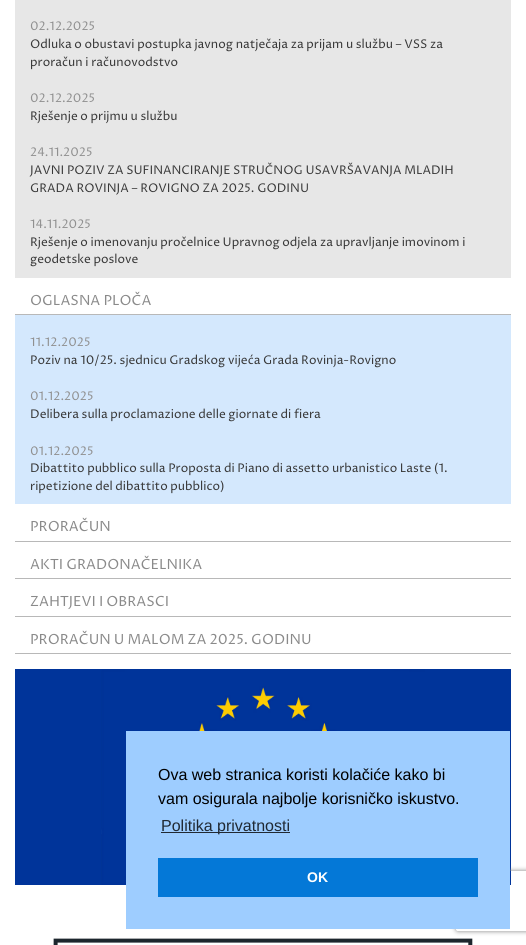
import math
import cairo

surface = cairo.ImageSurface(cairo.FORMAT_RGB24, 526, 945)
cr = cairo.Context(surface)
options = cairo.FontOptions()
options.set_hint_metrics(cairo.HINT_METRICS_OFF)
options.set_hint_style(cairo.HINT_STYLE_NONE)
cr.set_font_options(options)
cr.set_miter_limit(4)


def rgb(code):
    cr.set_source_rgb(*(v / 255 for v in bytes.fromhex(code[-6:])))


def rrect(x, y, w, h, r):
    cr.new_sub_path()
    for i, (u, v) in enumerate([(x + w - r, y + h - r), (x + r, y + h - r), (x + r, y + r), (x + w - r, y + r)]):
        cr.arc(u, v, r, i * math.pi / 2, (i + 1) * math.pi / 2)
    cr.close_path()


def soft_shadow(x, y, w, h, r, blur, alpha):
    cr.push_group_with_content(cairo.CONTENT_ALPHA)
    cr.set_operator(cairo.OPERATOR_SOURCE)
    for i in range(15, -16, -2):
        e = blur * i / 6
        if min(w, h) + 2 * e > 0:
            cr.set_source_rgba(0, 0, 0, alpha * math.erfc((i - 1) / 8.5) / 2)
            rrect(x - e, y - e, w + 2 * e, h + 2 * e, max(0, min(r + e + blur * .6, min(w, h) / 2 + e)))
            cr.fill()
    cr.mask(cr.pop_group())


def image(path, x, y, w, h):
    cr.save()
    cr.set_source_surface(cairo.ImageSurface.create_from_png(path), x, y)
    cr.rectangle(x, y, w, h)
    cr.fill()
    cr.restore()


rgb("#ffffff")
cr.paint()
for x, y, w, h, color in [
    (15, 0, 496, 278, "#e7e7e7"),
    (15, 315, 496, 189, "#d4e8fd"),
    (15, 314, 496, 1, "#b8b8b8"),
    (15, 541, 496, 1, "#b8b8b8"),
    (15, 578, 496, 1, "#b8b8b8"),
    (15, 616, 496, 1, "#b8b8b8"),
    (15, 653, 496, 1, "#b8b8b8"),
]:
    rgb(color)
    cr.rectangle(x, y, w, h)
    cr.fill()
image("img/1.png", 15, 669, 496, 216)
image("img/2.png", 53, 938, 420, 7)
cr.save()
cr.set_fill_rule(cairo.FILL_RULE_EVEN_ODD)
cr.new_path()
cr.move_to(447, 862)
cr.line_to(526, 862)
cr.line_to(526, 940)
cr.line_to(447, 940)
cr.close_path()
cr.move_to(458, 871)
cr.line_to(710, 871)
cr.curve_to(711, 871, 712, 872, 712, 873)
cr.line_to(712, 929)
cr.curve_to(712, 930, 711, 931, 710, 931)
cr.line_to(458, 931)
cr.curve_to(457, 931, 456, 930, 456, 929)
cr.line_to(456, 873)
cr.curve_to(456, 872, 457, 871, 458, 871)
cr.close_path()
cr.clip()
rgb("#808080")
soft_shadow(456, 871, 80, 60, 2, 2.5, 1)
cr.restore()
for x, y, w, h, color in [
    (126, 731, 384, 198, "#9ecdff"),
    (161, 832, 129, 1, "#202933"),
    (158, 858, 320, 39, "#0478d7"),
]:
    rgb(color)
    cr.rectangle(x, y, w, h)
    cr.fill()
cr.select_font_face("Proza Libre")
cr.set_font_size(12)
rgb("#909090")
cr.move_to(30, 30)
cr.show_text("02.12.2025")
rgb("#383838")
cr.move_to(30, 48)
cr.show_text("Odluka o obustavi postupka javnog natječaja za prijam u službu – VSS za")
cr.move_to(30, 66)
cr.show_text("proračun i računovodstvo")
rgb("#909090")
cr.move_to(30, 102)
cr.show_text("02.12.2025")
rgb("#383838")
cr.move_to(30, 120)
cr.show_text("Rješenje o prijmu u službu")
rgb("#909090")
cr.move_to(30, 156)
cr.show_text("24.11.2025")
rgb("#383838")
cr.move_to(30, 174)
cr.show_text("JAVNI POZIV ZA SUFINANCIRANJE STRUČNOG USAVRŠAVANJA MLADIH")
cr.move_to(30, 192)
cr.show_text("GRADA ROVINJA – ROVIGNO ZA 2025. GODINU")
rgb("#909090")
cr.move_to(30, 228)
cr.show_text("14.11.2025")
rgb("#383838")
cr.move_to(30, 246)
cr.show_text("Rješenje o imenovanju pročelnice Upravnog odjela za upravljanje imovinom i")
cr.move_to(30, 263)
cr.show_text("geodetske poslove")
cr.set_font_size(14)
rgb("#8a8a8a")
cr.move_to(30, 305)
cr.show_text("OGLASNA PLOČA")
cr.set_font_size(12)
rgb("#909090")
cr.move_to(30, 346)
cr.show_text("11.12.2025")
rgb("#383838")
cr.move_to(30, 364)
cr.show_text("Poziv na 10/25. sjednicu Gradskog vijeća Grada Rovinja-Rovigno")
rgb("#909090")
cr.move_to(30, 400)
cr.show_text("01.12.2025")
rgb("#383838")
cr.move_to(30, 418)
cr.show_text("Delibera sulla proclamazione delle giornate di fiera")
rgb("#909090")
cr.move_to(30, 455)
cr.show_text("01.12.2025")
rgb("#383838")
cr.move_to(30, 472)
cr.show_text("Dibattito pubblico sulla Proposta di Piano di assetto urbanistico Laste (1.")
cr.move_to(30, 490)
cr.show_text("ripetizione del dibattito pubblico)")
cr.set_font_size(14)
rgb("#8a8a8a")
for x, y, s in [
    (30, 531, "PRORAČUN"),
    (30, 569, "AKTI GRADONAČELNIKA"),
    (30, 606, "ZAHTJEVI I OBRASCI"),
    (30, 644, "PRORAČUN U MALOM ZA 2025. GODINU"),
]:
    cr.move_to(x, y)
    cr.show_text(s)
cr.select_font_face("Liberation Sans")
cr.set_font_size(16)
rgb("#000000")
cr.move_to(158, 780)
cr.show_text("Ova web stranica koristi kolačiće kako bi")
cr.move_to(158, 804)
cr.show_text("vam osigurala najbolje korisničko iskustvo.")
rgb("#202933")
cr.move_to(161, 831)
cr.show_text("Politika privatnosti")
cr.select_font_face("Liberation Sans", cairo.FONT_SLANT_NORMAL, cairo.FONT_WEIGHT_BOLD)
cr.set_font_size(14)
rgb("#ffffff")
cr.move_to(307, 882)
cr.show_text("OK")
surface.write_to_png("page.png")
